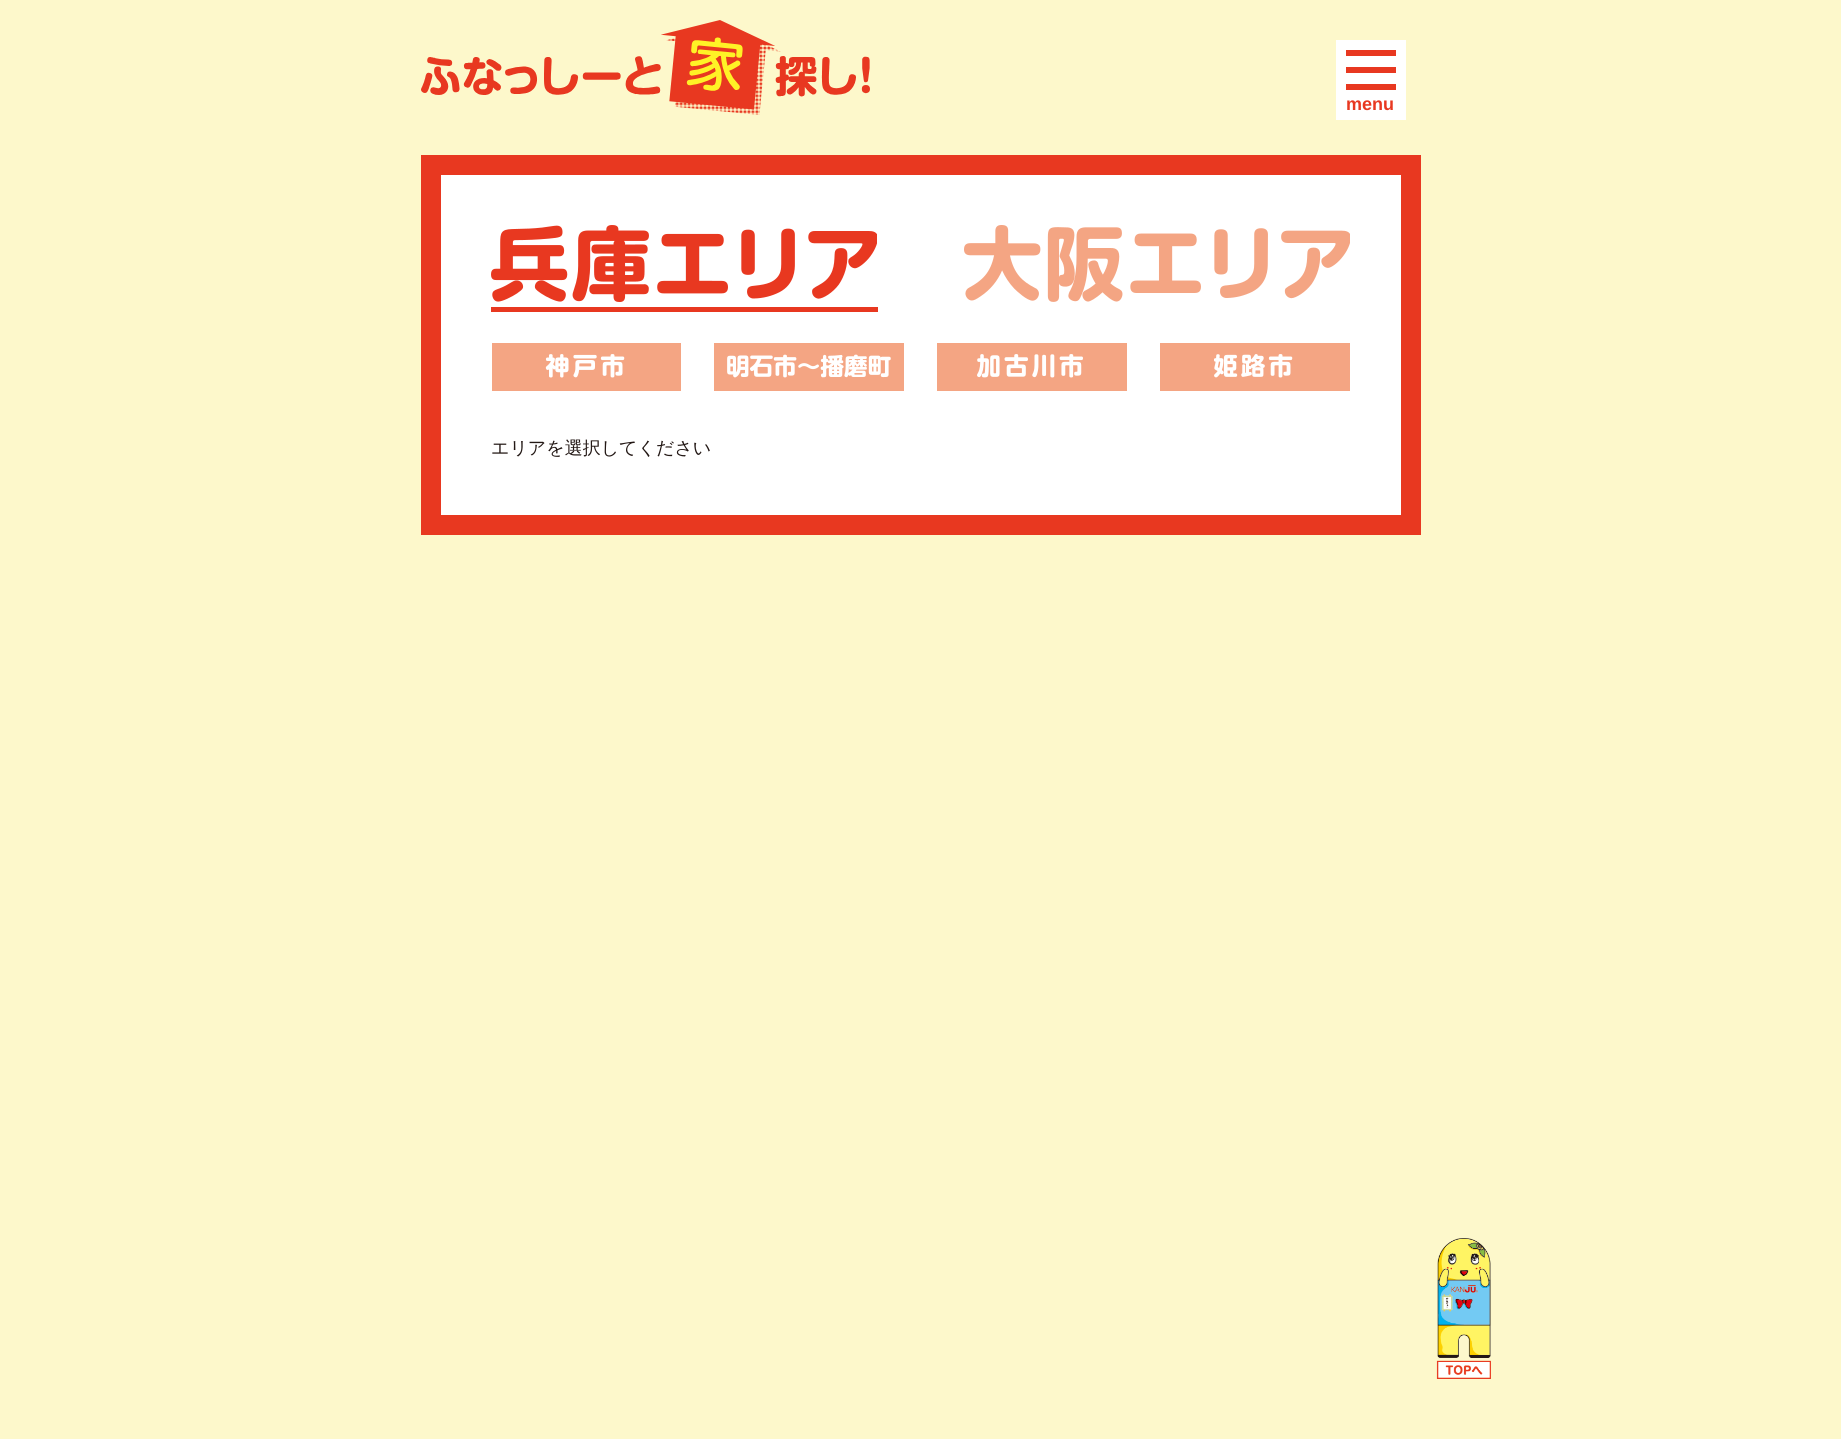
import math
import cairo

surface = cairo.ImageSurface(cairo.FORMAT_RGB24, 1841, 1439)
cr = cairo.Context(surface)
options = cairo.FontOptions()
options.set_hint_metrics(cairo.HINT_METRICS_OFF)
options.set_hint_style(cairo.HINT_STYLE_NONE)
cr.set_font_options(options)
cr.set_miter_limit(4)


def rgb(code):
    cr.set_source_rgb(*(v / 255 for v in bytes.fromhex(code[-6:])))


def image(path, x, y, w, h):
    cr.save()
    cr.set_source_surface(cairo.ImageSurface.create_from_png(path), x, y)
    cr.rectangle(x, y, w, h)
    cr.fill()
    cr.restore()


rgb("#fdf8cb")
cr.paint()
for x, y, w, h, color in [
    (1336, 40, 70, 80, "#ffffff"),
    (1346, 50, 50, 6, "#e83820"),
    (1346, 67, 50, 6, "#e83820"),
    (1346, 84, 50, 6, "#e83820"),
]:
    rgb(color)
    cr.rectangle(x, y, w, h)
    cr.fill()
image("img/1.png", 421, 20, 449, 95)
rgb("#ffffff")
cr.rectangle(431, 165, 980, 360)
cr.fill_preserve()
rgb("#e83820")
cr.set_line_width(20)
cr.stroke()
cr.rectangle(491, 307, 387, 5)
cr.fill()
image("img/2.png", 491, 225, 386, 77)
image("img/3.png", 964, 225, 386, 77)
rgb("#f4a583")
cr.rectangle(492, 343, 189, 48)
cr.fill()
image("img/4.png", 545, 354, 80, 24)
cr.rectangle(714, 343, 190, 48)
cr.fill()
image("img/5.png", 727, 354, 164, 24)
cr.rectangle(937, 343, 190, 48)
cr.fill()
image("img/6.png", 977, 354, 106, 24)
cr.rectangle(1160, 343, 190, 48)
cr.fill()
image("img/7.png", 1214, 354, 79, 24)
image("img/8.png", 1436, 1238, 55, 141)
cr.select_font_face("Liberation Sans", cairo.FONT_SLANT_NORMAL, cairo.FONT_WEIGHT_BOLD)
cr.set_font_size(18)
rgb("#e83820")
cr.move_to(1346, 110)
cr.show_text("menu")
cr.select_font_face("WenQuanYi Zen Hei Medium")
rgb("#231815")
cr.move_to(491, 454)
cr.show_text("エリアを選択してください")
surface.write_to_png("page.png")
